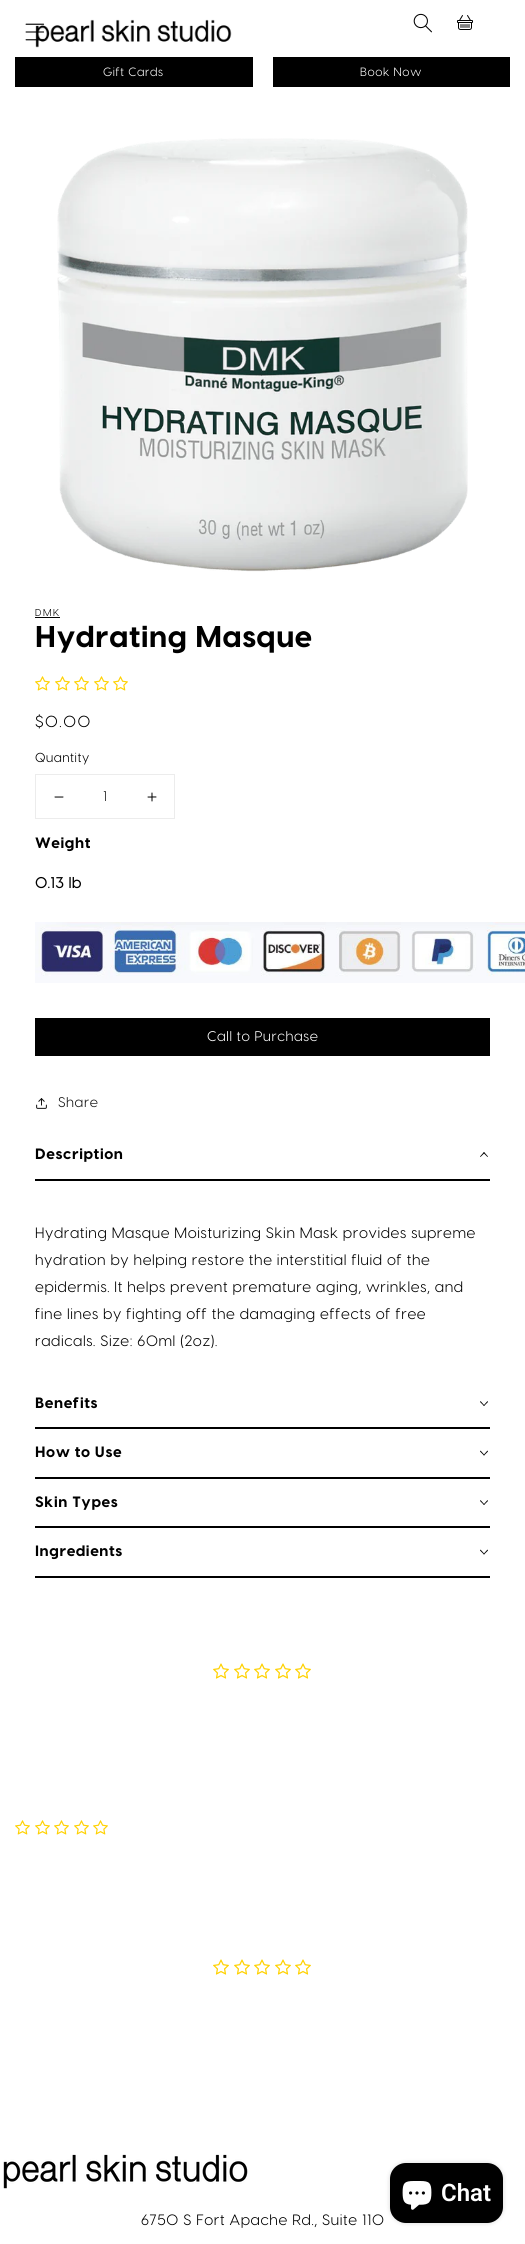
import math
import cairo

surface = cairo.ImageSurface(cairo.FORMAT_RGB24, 525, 2244)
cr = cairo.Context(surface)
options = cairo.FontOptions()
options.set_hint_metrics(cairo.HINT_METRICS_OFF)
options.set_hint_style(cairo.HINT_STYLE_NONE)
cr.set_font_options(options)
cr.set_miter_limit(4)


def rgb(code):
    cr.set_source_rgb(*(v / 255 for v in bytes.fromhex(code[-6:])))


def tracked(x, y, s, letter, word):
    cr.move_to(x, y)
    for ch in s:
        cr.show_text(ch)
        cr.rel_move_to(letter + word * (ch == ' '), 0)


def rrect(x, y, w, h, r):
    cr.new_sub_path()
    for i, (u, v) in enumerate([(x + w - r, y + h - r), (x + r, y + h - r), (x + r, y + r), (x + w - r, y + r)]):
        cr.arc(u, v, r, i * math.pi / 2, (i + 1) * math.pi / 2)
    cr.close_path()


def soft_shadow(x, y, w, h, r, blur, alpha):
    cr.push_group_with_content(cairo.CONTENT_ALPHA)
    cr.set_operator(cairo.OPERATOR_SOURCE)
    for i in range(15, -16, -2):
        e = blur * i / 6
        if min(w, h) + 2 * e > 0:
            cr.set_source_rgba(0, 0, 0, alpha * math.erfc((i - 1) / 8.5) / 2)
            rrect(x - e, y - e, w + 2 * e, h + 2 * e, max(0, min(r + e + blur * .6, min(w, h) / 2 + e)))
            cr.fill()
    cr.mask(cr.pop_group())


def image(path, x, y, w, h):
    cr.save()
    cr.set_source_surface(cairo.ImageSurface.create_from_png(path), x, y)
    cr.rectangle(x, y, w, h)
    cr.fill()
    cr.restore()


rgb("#ffffff")
cr.paint()
image("img/1.png", 35, 19, 197, 29)
image("img/2.png", 25, 23, 20, 18)
image("img/3.png", 413, 13, 19, 20)
image("img/4.png", 457, 15, 16, 15)
rgb("#000000")
cr.rectangle(15, 57, 238, 30)
cr.fill()
cr.rectangle(273, 57, 237, 30)
cr.fill()
image("img/5.png", 57, 138, 411, 434)
cr.rectangle(35, 617, 25, 1)
cr.fill()
image("img/6.png", 35, 676, 15, 15)
image("img/6.png", 55, 676, 15, 15)
image("img/6.png", 74, 676, 15, 15)
image("img/6.png", 94, 676, 15, 15)
image("img/6.png", 113, 676, 15, 15)
cr.rectangle(35.5, 774.5, 139, 44)
rgb("#ececec")
cr.set_line_width(1)
cr.stroke()
image("img/7.png", 54, 796, 10, 2)
image("img/8.png", 147, 792, 10, 10)
image("img/9.png", 35, 922, 490, 61)
rgb("#000000")
cr.rectangle(35, 1018, 455, 38)
cr.fill()
image("img/10.png", 36, 1098, 11, 11)
cr.rectangle(35, 1179, 455, 2)
cr.fill()
cr.new_path()
cr.move_to(480.5, 1157)
cr.line_to(480, 1156.5)
cr.line_to(484, 1152)
cr.line_to(484.5, 1153)
cr.close_path()
cr.fill()
cr.new_path()
cr.move_to(487.5, 1157)
cr.line_to(483.5, 1153)
cr.line_to(484, 1152)
cr.line_to(488, 1156.5)
cr.close_path()
cr.fill()
cr.rectangle(35, 1427, 455, 2)
cr.fill()
cr.new_path()
cr.move_to(487.5, 1401)
cr.line_to(488, 1402)
cr.line_to(484, 1406)
cr.line_to(483.5, 1405.5)
cr.close_path()
cr.fill()
cr.new_path()
cr.move_to(480.5, 1401)
cr.line_to(484.5, 1405.5)
cr.line_to(484, 1406)
cr.line_to(480, 1402)
cr.close_path()
cr.fill()
cr.rectangle(35, 1477, 455, 2)
cr.fill()
cr.new_path()
cr.move_to(487.5, 1450.5)
cr.line_to(488, 1451.5)
cr.line_to(484, 1455.5)
cr.line_to(483.5, 1455)
cr.close_path()
cr.fill()
cr.new_path()
cr.move_to(480.5, 1450.5)
cr.line_to(484.5, 1455)
cr.line_to(484, 1455.5)
cr.line_to(480, 1451.5)
cr.close_path()
cr.fill()
cr.rectangle(35, 1526, 455, 2)
cr.fill()
cr.new_path()
cr.move_to(487.5, 1500)
cr.line_to(488, 1501)
cr.line_to(484, 1505)
cr.line_to(483.5, 1504.5)
cr.close_path()
cr.fill()
cr.new_path()
cr.move_to(480.5, 1500)
cr.line_to(484.5, 1504.5)
cr.line_to(484, 1505)
cr.line_to(480, 1501)
cr.close_path()
cr.fill()
cr.rectangle(35, 1576, 455, 2)
cr.fill()
cr.new_path()
cr.move_to(487.5, 1549.5)
cr.line_to(488, 1550.5)
cr.line_to(484, 1554.5)
cr.line_to(483.5, 1554)
cr.close_path()
cr.fill()
cr.new_path()
cr.move_to(480.5, 1549.5)
cr.line_to(484.5, 1554)
cr.line_to(484, 1554.5)
cr.line_to(480, 1550.5)
cr.close_path()
cr.fill()
image("img/11.png", 213, 1663, 16, 16)
image("img/11.png", 234, 1663, 16, 16)
image("img/11.png", 254, 1663, 16, 16)
image("img/11.png", 275, 1663, 16, 16)
image("img/11.png", 295, 1663, 16, 16)
image("img/6.png", 15, 1820, 15, 15)
image("img/6.png", 35, 1820, 15, 15)
image("img/6.png", 54, 1820, 15, 15)
image("img/6.png", 74, 1820, 15, 15)
image("img/6.png", 93, 1820, 15, 15)
image("img/11.png", 213, 1959, 16, 16)
image("img/11.png", 234, 1959, 16, 16)
image("img/11.png", 254, 1959, 16, 16)
image("img/11.png", 275, 1959, 16, 16)
image("img/11.png", 295, 1959, 16, 16)
rgb("#000000")
soft_shadow(390, 2163, 113, 60, 16, 2.5, 0.15)
rgb("#000000")
rrect(390, 2163, 113, 60, 16)
cr.fill()
image("img/12.png", 402, 2181, 30, 29)
image("img/13.png", 3, 2154, 245, 35)
cr.select_font_face("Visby")
cr.set_font_size(12)
rgb("#ffffff")
tracked(103, 76, "Gift Cards", 0.6, 0)
tracked(360, 76, "Book Now", 0.6, 0)
cr.set_font_size(10)
rgb("#000000")
tracked(35, 616, "DMK", 1.5, 0)
cr.select_font_face("Visby ExtraBold")
cr.set_font_size(30)
tracked(35, 647, "Hydrating Masque", 0.6, 0)
cr.select_font_face("Visby")
cr.set_font_size(16)
tracked(35, 727, "$0.00", 1.5, 0)
cr.set_font_size(13)
tracked(35, 762, "Quantity", 0.5, 0)
cr.set_font_size(14)
rgb("#262626")
cr.move_to(103, 801)
cr.show_text("1")
cr.select_font_face("Visby ExtraBold")
cr.set_font_size(15)
rgb("#000000")
tracked(35, 848, "Weight", 0.6, 0)
cr.select_font_face("Visby", cairo.FONT_SLANT_NORMAL, cairo.FONT_WEIGHT_BOLD)
tracked(35, 888, "0.13 lb", 0.6, 0)
cr.select_font_face("Visby")
cr.set_font_size(14)
rgb("#ffffff")
tracked(207, 1041, "Call to Purchase", 0.6, 0)
rgb("#121212")
tracked(58, 1107, "Share", 0.6, 0)
cr.select_font_face("Visby ExtraBold")
cr.set_font_size(15)
rgb("#000000")
tracked(35, 1159, "Description", 0.6, 0)
cr.select_font_face("Visby")
for x, y, s in [
    (35, 1238, "Hydrating Masque Moisturizing Skin Mask provides supreme"),
    (35, 1265, "hydration by helping restore the interstitial fluid of the"),
    (35, 1292, "epidermis. It helps prevent premature aging, wrinkles, and"),
    (35, 1319, "fine lines by fighting off the damaging effects of free"),
    (35, 1346, "radicals. Size: 60ml (2oz)."),
]:
    tracked(x, y, s, 0.6, 0)
cr.select_font_face("Visby ExtraBold")
for x, y, s in [
    (35, 1408, "Benefits"),
    (35, 1457, "How to Use"),
    (35, 1507, "Skin Types"),
    (35, 1556, "Ingredients"),
]:
    tracked(x, y, s, 0.6, 0)
cr.select_font_face("Roboto SemiBold")
cr.set_font_size(24)
rgb("#ffffff")
cr.move_to(441, 2201)
cr.show_text("Chat")
cr.select_font_face("Visby")
cr.set_font_size(15)
rgb("#000000")
tracked(141, 2225, "6750 S Fort Apache Rd., Suite 110", 0.6, 0)
surface.write_to_png("page.png")
